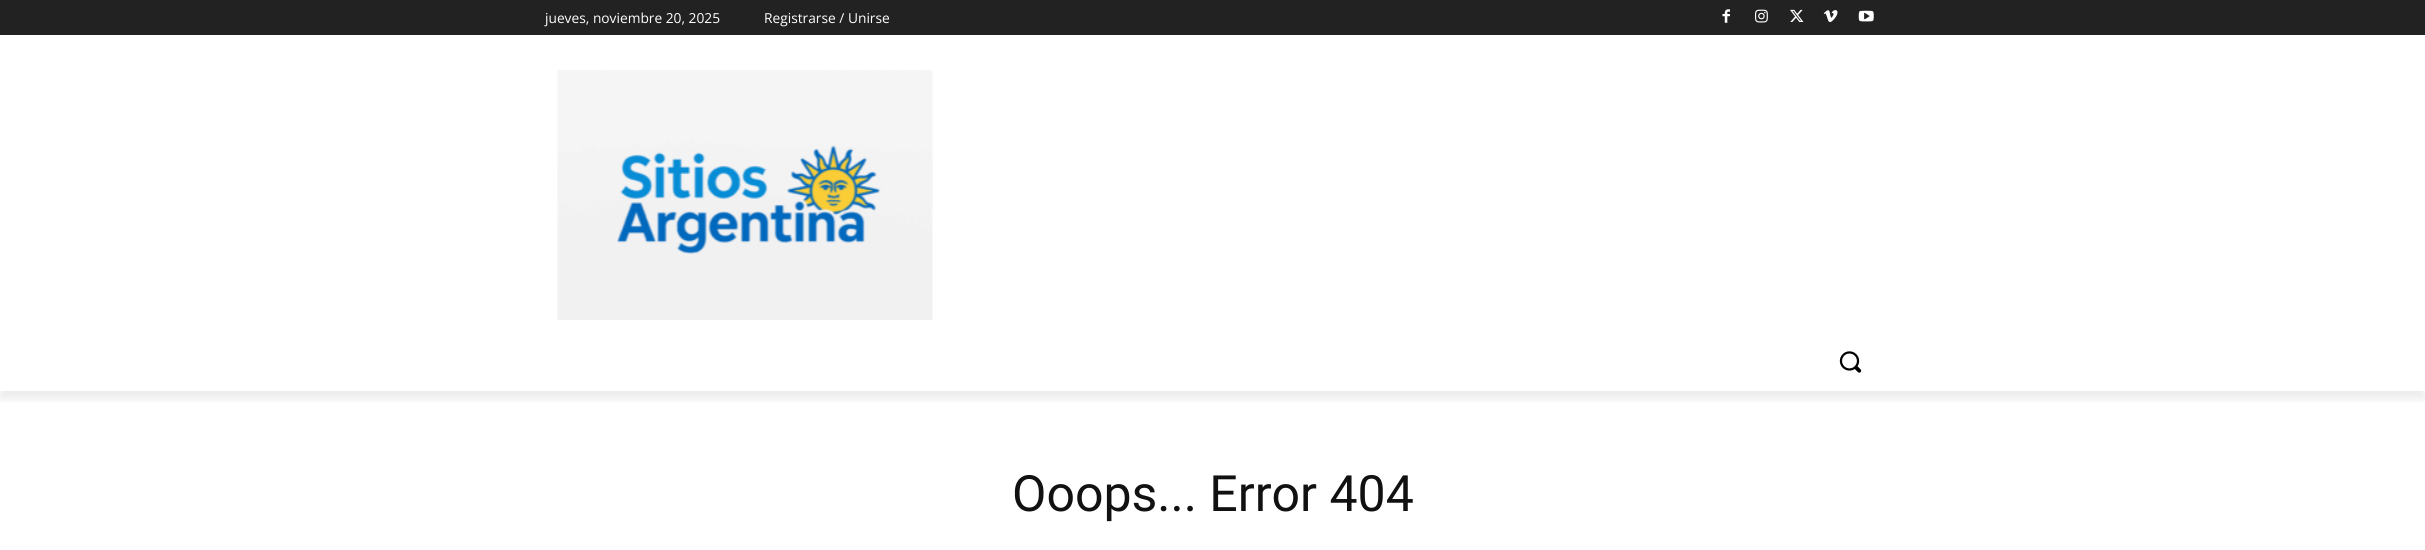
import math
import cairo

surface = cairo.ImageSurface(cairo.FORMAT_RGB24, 2425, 550)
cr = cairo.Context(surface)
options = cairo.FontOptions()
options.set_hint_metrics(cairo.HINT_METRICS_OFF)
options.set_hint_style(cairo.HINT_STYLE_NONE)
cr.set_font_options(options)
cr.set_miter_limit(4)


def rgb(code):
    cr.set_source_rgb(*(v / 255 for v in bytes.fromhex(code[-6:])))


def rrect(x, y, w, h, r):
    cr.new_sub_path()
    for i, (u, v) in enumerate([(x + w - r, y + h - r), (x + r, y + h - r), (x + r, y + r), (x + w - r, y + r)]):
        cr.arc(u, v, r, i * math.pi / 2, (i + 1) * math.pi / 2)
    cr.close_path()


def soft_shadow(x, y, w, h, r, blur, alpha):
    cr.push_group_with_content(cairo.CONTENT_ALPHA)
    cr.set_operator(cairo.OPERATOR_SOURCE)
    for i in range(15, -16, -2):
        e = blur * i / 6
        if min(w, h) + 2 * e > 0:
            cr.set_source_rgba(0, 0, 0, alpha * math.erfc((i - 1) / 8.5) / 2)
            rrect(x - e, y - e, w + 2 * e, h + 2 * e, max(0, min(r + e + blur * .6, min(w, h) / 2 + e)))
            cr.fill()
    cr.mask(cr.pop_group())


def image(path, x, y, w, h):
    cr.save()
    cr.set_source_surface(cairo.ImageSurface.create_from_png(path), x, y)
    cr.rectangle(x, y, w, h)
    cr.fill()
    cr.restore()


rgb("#ffffff")
cr.paint()
rgb("#222222")
cr.rectangle(0, 0, 2425, 35)
cr.fill()
image("img/1.png", 1722, 9, 8, 14)
image("img/2.png", 1755, 9, 13, 14)
image("img/3.png", 1790, 9, 14, 13)
image("img/4.png", 1823, 10, 15, 13)
image("img/5.png", 1858, 10, 16, 12)
image("img/6.png", 557, 70, 376, 250)
cr.save()
cr.rectangle(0, 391, 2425, 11)
cr.clip()
rgb("#000000")
soft_shadow(0, 8, 2425, 391, 0, 5, 0.08)
cr.restore()
image("img/7.png", 1839, 351, 23, 22)
cr.select_font_face("Open Sans")
cr.set_font_size(13.75)
rgb("#ffffff")
cr.move_to(545, 23)
cr.show_text("jueves, noviembre 20, 2025")
cr.move_to(764, 23)
cr.show_text("Registrarse / Unirse")
cr.select_font_face("Roboto")
cr.set_font_size(50)
rgb("#111111")
cr.move_to(1012, 511)
cr.show_text("Ooops... Error 404")
surface.write_to_png("page.png")
